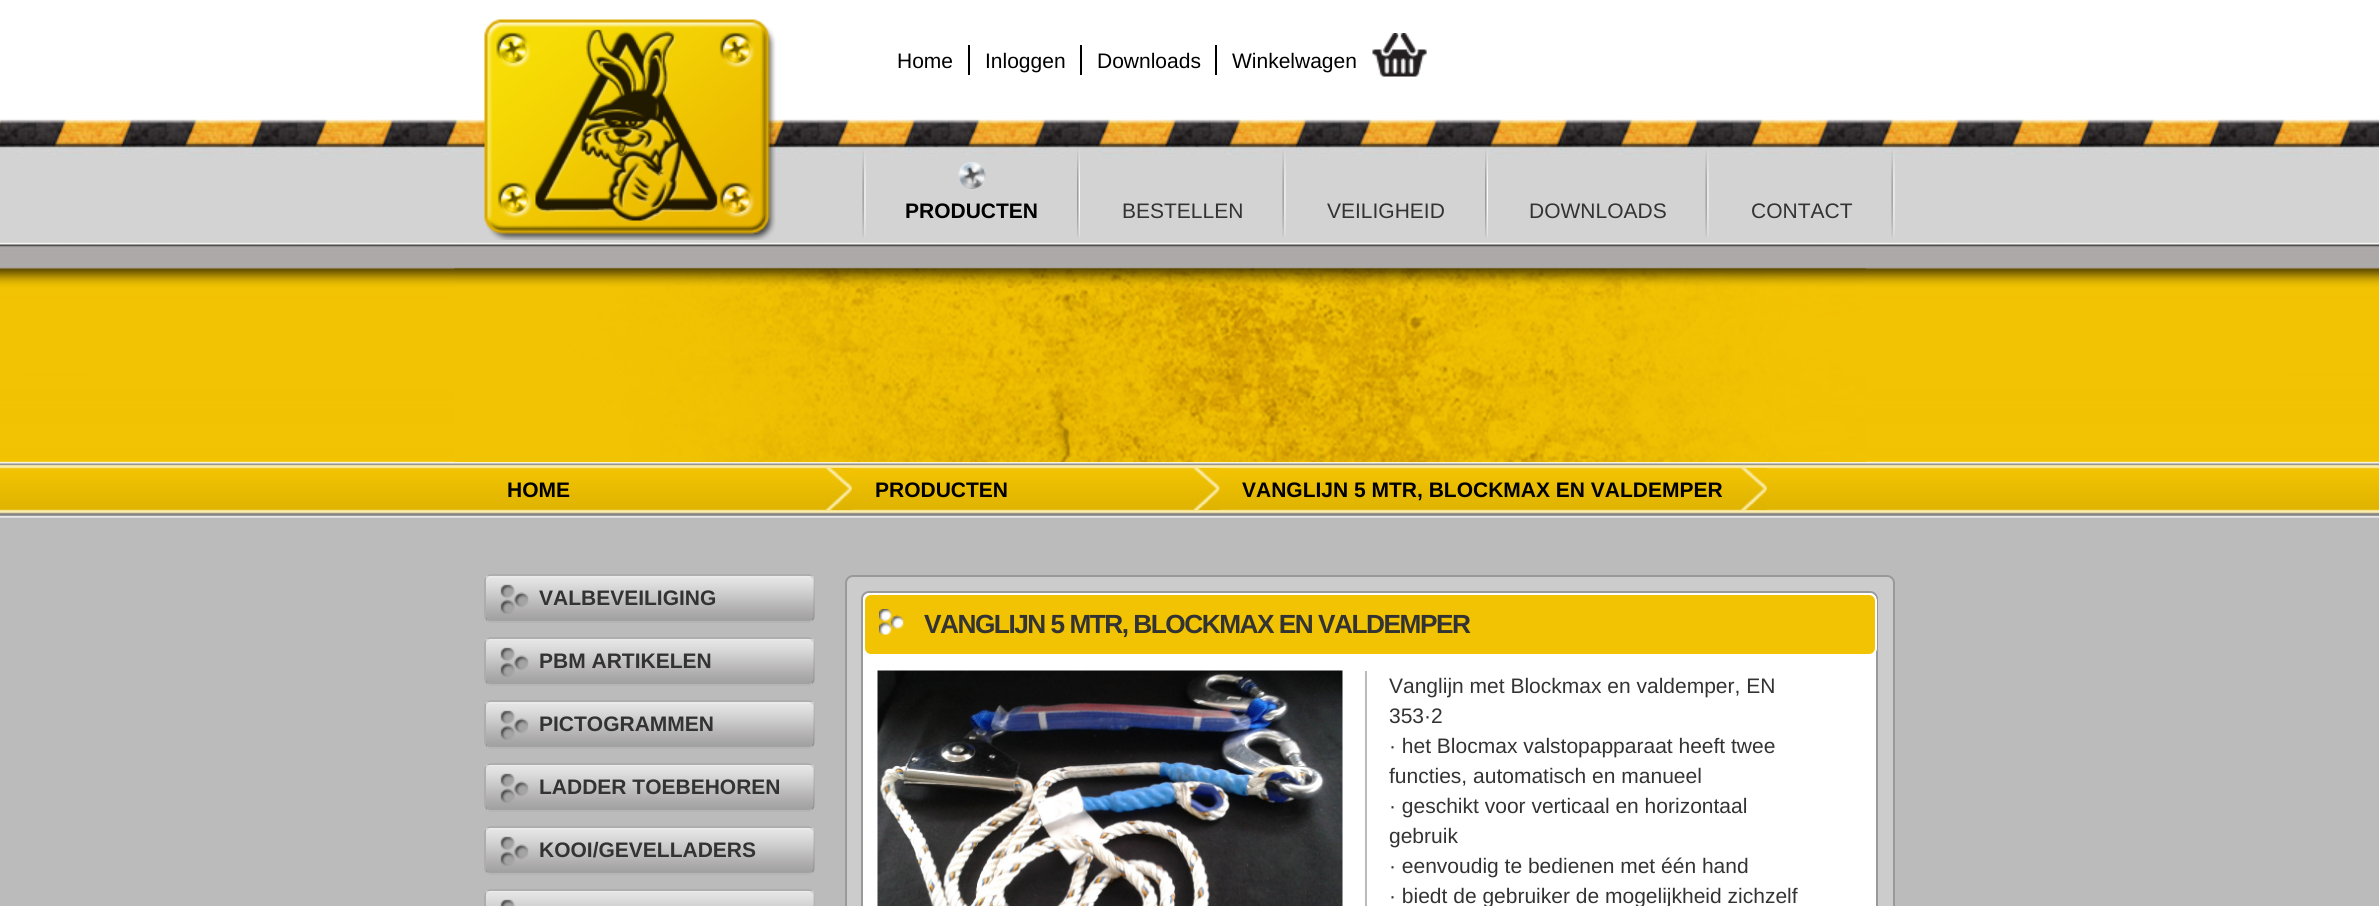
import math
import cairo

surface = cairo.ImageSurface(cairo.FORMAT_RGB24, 2379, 906)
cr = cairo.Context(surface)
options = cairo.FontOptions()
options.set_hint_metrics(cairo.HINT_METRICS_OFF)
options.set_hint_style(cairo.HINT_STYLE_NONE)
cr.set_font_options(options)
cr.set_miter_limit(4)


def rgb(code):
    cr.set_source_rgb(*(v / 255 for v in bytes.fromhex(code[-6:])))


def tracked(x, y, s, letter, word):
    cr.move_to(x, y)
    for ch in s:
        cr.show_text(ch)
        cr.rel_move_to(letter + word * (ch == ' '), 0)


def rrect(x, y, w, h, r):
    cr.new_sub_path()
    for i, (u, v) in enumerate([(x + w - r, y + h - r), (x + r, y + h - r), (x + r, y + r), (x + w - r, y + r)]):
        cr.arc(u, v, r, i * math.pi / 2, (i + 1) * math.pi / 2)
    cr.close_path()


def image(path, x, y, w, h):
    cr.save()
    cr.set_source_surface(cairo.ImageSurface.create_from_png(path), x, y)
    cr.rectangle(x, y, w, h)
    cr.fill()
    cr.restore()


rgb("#bbbbbb")
cr.paint()
image("img/1.png", 0, 0, 2379, 518)
for x, y, w, h, color in [
    (968, 45, 2, 30, "#000000"),
    (1080, 45, 2, 30, "#000000"),
    (1215, 45, 2, 30, "#000000"),
]:
    rgb(color)
    cr.rectangle(x, y, w, h)
    cr.fill()
image("img/2.png", 1372, 33, 55, 44)
image("img/3.png", 484, 19, 292, 221)
image("img/4.png", 862, 150, 4, 87)
image("img/5.png", 1077, 149, 3, 88)
image("img/6.png", 958, 162, 28, 27)
image("img/7.png", 1282, 150, 4, 87)
image("img/8.png", 1485, 149, 3, 88)
image("img/9.png", 1705, 150, 4, 87)
image("img/10.png", 1891, 150, 4, 87)
image("img/11.png", 454, 268, 1412, 194)
image("img/12.png", 826, 468, 26, 42)
image("img/13.png", 1194, 468, 26, 42)
image("img/12.png", 1741, 468, 26, 42)
image("img/14.png", 486, 576, 329, 45)
cr.set_source_rgba(1, 1, 1, 0.2)
cr.new_path()
cr.move_to(490, 578)
cr.line_to(808, 578)
cr.curve_to(811, 578, 813, 580, 813, 582)
cr.curve_to(813, 579, 811, 576, 808, 576)
cr.line_to(491, 576)
cr.curve_to(488, 576, 486, 579, 486, 582)
cr.curve_to(486, 580, 488, 578, 490, 578)
cr.close_path()
cr.fill()
cr.new_path()
cr.move_to(812, 620)
cr.curve_to(811, 621, 810, 622, 808.5, 622)
cr.line_to(490.5, 622)
cr.curve_to(489, 622, 488, 621, 487, 620)
rgb("#b3b3b3")
cr.set_line_width(1.5)
cr.stroke()
cr.new_path()
cr.move_to(487, 620)
cr.curve_to(486, 619, 485, 618, 485, 616.5)
cr.line_to(485, 580.5)
cr.curve_to(485, 579, 486, 578, 487, 577)
cr.curve_to(488, 576, 489, 575, 490.5, 575)
cr.line_to(808.5, 575)
cr.curve_to(810, 575, 811, 576, 812, 577)
cr.curve_to(813, 578, 814, 579, 814, 580.5)
cr.line_to(814, 616.5)
cr.curve_to(814, 618, 813, 619, 812, 620)
cr.set_source_rgba(0, 0, 0, 0.1)
cr.stroke()
image("img/14.png", 486, 639, 329, 45)
cr.set_source_rgba(1, 1, 1, 0.2)
cr.new_path()
cr.move_to(490, 640)
cr.line_to(808, 640)
cr.curve_to(811, 640, 813, 643, 813, 645)
cr.curve_to(813, 642, 811, 639, 808, 639)
cr.line_to(491, 639)
cr.curve_to(488, 639, 486, 642, 486, 645)
cr.curve_to(486, 643, 488, 640, 490, 640)
cr.close_path()
cr.fill()
cr.new_path()
cr.move_to(812, 683)
cr.curve_to(811, 684, 810, 685, 808.5, 685)
cr.line_to(490.5, 685)
cr.curve_to(489, 685, 488, 684, 487, 683)
rgb("#b3b3b3")
cr.stroke()
cr.new_path()
cr.move_to(487, 683)
cr.curve_to(486, 682, 485, 681, 485, 679.5)
cr.line_to(485, 643.5)
cr.curve_to(485, 642, 486, 641, 487, 640)
cr.curve_to(488, 639, 489, 638, 490.5, 638)
cr.line_to(808.5, 638)
cr.curve_to(810, 638, 811, 639, 812, 640)
cr.curve_to(813, 641, 814, 642, 814, 643.5)
cr.line_to(814, 679.5)
cr.curve_to(814, 681, 813, 682, 812, 683)
cr.set_source_rgba(0, 0, 0, 0.1)
cr.stroke()
image("img/14.png", 486, 702, 329, 45)
cr.set_source_rgba(1, 1, 1, 0.2)
cr.new_path()
cr.move_to(490, 704)
cr.line_to(808, 704)
cr.curve_to(811, 704, 813, 706, 813, 708)
cr.curve_to(813, 705, 811, 702, 808, 702)
cr.line_to(491, 702)
cr.curve_to(488, 702, 486, 705, 486, 708)
cr.curve_to(486, 706, 488, 704, 490, 704)
cr.close_path()
cr.fill()
cr.new_path()
cr.move_to(812, 746)
cr.curve_to(811, 747, 810, 748, 808.5, 748)
cr.line_to(490.5, 748)
cr.curve_to(489, 748, 488, 747, 487, 746)
rgb("#b3b3b3")
cr.stroke()
cr.new_path()
cr.move_to(487, 746)
cr.curve_to(486, 745, 485, 744, 485, 742.5)
cr.line_to(485, 706.5)
cr.curve_to(485, 705, 486, 704, 487, 703)
cr.curve_to(488, 702, 489, 701, 490.5, 701)
cr.line_to(808.5, 701)
cr.curve_to(810, 701, 811, 702, 812, 703)
cr.curve_to(813, 704, 814, 705, 814, 706.5)
cr.line_to(814, 742.5)
cr.curve_to(814, 744, 813, 745, 812, 746)
cr.set_source_rgba(0, 0, 0, 0.1)
cr.stroke()
image("img/14.png", 486, 765, 329, 45)
cr.set_source_rgba(1, 1, 1, 0.2)
cr.new_path()
cr.move_to(490, 766)
cr.line_to(808, 766)
cr.curve_to(811, 766, 813, 769, 813, 771)
cr.curve_to(813, 768, 811, 765, 808, 765)
cr.line_to(491, 765)
cr.curve_to(488, 765, 486, 768, 486, 771)
cr.curve_to(486, 769, 488, 766, 490, 766)
cr.close_path()
cr.fill()
cr.new_path()
cr.move_to(812, 809)
cr.curve_to(811, 810, 810, 811, 808.5, 811)
cr.line_to(490.5, 811)
cr.curve_to(489, 811, 488, 810, 487, 809)
rgb("#b3b3b3")
cr.stroke()
cr.new_path()
cr.move_to(487, 809)
cr.curve_to(486, 808, 485, 807, 485, 805.5)
cr.line_to(485, 769.5)
cr.curve_to(485, 768, 486, 767, 487, 766)
cr.curve_to(488, 765, 489, 764, 490.5, 764)
cr.line_to(808.5, 764)
cr.curve_to(810, 764, 811, 765, 812, 766)
cr.curve_to(813, 767, 814, 768, 814, 769.5)
cr.line_to(814, 805.5)
cr.curve_to(814, 807, 813, 808, 812, 809)
cr.set_source_rgba(0, 0, 0, 0.1)
cr.stroke()
image("img/14.png", 486, 828, 329, 45)
cr.set_source_rgba(1, 1, 1, 0.2)
cr.new_path()
cr.move_to(490, 830)
cr.line_to(808, 830)
cr.curve_to(811, 830, 813, 832, 813, 834)
cr.curve_to(813, 831, 811, 828, 808, 828)
cr.line_to(491, 828)
cr.curve_to(488, 828, 486, 831, 486, 834)
cr.curve_to(486, 832, 488, 830, 490, 830)
cr.close_path()
cr.fill()
cr.new_path()
cr.move_to(812, 872)
cr.curve_to(811, 873, 810, 874, 808.5, 874)
cr.line_to(490.5, 874)
cr.curve_to(489, 874, 488, 873, 487, 872)
rgb("#b3b3b3")
cr.stroke()
cr.new_path()
cr.move_to(487, 872)
cr.curve_to(486, 871, 485, 870, 485, 868.5)
cr.line_to(485, 832.5)
cr.curve_to(485, 831, 486, 830, 487, 829)
cr.curve_to(488, 828, 489, 827, 490.5, 827)
cr.line_to(808.5, 827)
cr.curve_to(810, 827, 811, 828, 812, 829)
cr.curve_to(813, 830, 814, 831, 814, 832.5)
cr.line_to(814, 868.5)
cr.curve_to(814, 870, 813, 871, 812, 872)
cr.set_source_rgba(0, 0, 0, 0.1)
cr.stroke()
image("img/15.png", 486, 891, 329, 15)
cr.set_source_rgba(1, 1, 1, 0.2)
cr.new_path()
cr.move_to(490, 892)
cr.line_to(808, 892)
cr.curve_to(811, 892, 813, 895, 813, 897)
cr.curve_to(813, 894, 811, 891, 808, 891)
cr.line_to(491, 891)
cr.curve_to(488, 891, 486, 894, 486, 897)
cr.curve_to(486, 895, 488, 892, 490, 892)
cr.close_path()
cr.fill()
cr.new_path()
cr.move_to(487, 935)
cr.curve_to(486, 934, 485, 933, 485, 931.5)
cr.line_to(485, 895.5)
cr.curve_to(485, 894, 486, 893, 487, 892)
cr.curve_to(488, 891, 489, 890, 490.5, 890)
cr.line_to(808.5, 890)
cr.curve_to(810, 890, 811, 891, 812, 892)
cr.curve_to(813, 893, 814, 894, 814, 895.5)
cr.line_to(814, 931.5)
cr.curve_to(814, 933, 813, 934, 812, 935)
cr.set_source_rgba(0, 0, 0, 0.1)
cr.stroke()
rgb("#cccccc")
rrect(846, 576, 1048, 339, 7)
cr.fill_preserve()
rgb("#999999")
cr.set_line_width(2)
cr.stroke()
rgb("#ffffff")
rrect(862, 592, 1015, 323, 7)
cr.fill_preserve()
rgb("#999999")
cr.stroke()
rgb("#f2c302")
rrect(864, 594, 1012, 61, 7)
cr.fill_preserve()
rgb("#ffffff")
cr.stroke()
image("img/16.png", 879, 609, 25, 26)
rgb("#bbbbbb")
cr.rectangle(1365, 671, 2, 235)
cr.fill()
image("img/17.png", 877, 670, 466, 236)
cr.select_font_face("Liberation Sans")
cr.set_font_size(21)
rgb("#000000")
for x, y, s in [
    (897, 68, "Home"),
    (985, 68, "Inloggen"),
    (1097, 68, "Downloads"),
    (1232, 68, "Winkelwagen"),
]:
    cr.move_to(x, y)
    cr.show_text(s)
cr.select_font_face("Liberation Sans", cairo.FONT_SLANT_NORMAL, cairo.FONT_WEIGHT_BOLD)
cr.move_to(905, 218)
cr.show_text("PRODUCTEN")
cr.select_font_face("Liberation Sans")
rgb("#333333")
for x, y, s in [
    (1122, 218, "BESTELLEN"),
    (1327, 218, "VEILIGHEID"),
    (1529, 218, "DOWNLOADS"),
    (1751, 218, "CONTACT"),
]:
    cr.move_to(x, y)
    cr.show_text(s)
cr.select_font_face("Liberation Sans", cairo.FONT_SLANT_NORMAL, cairo.FONT_WEIGHT_BOLD)
rgb("#000000")
for x, y, s in [
    (507, 497, "HOME"),
    (875, 497, "PRODUCTEN"),
    (1242, 497, "VANGLIJN 5 MTR, BLOCKMAX EN VALDEMPER"),
]:
    cr.move_to(x, y)
    cr.show_text(s)
rgb("#333333")
for x, y, s in [
    (539, 605, "VALBEVEILIGING"),
    (539, 668, "PBM ARTIKELEN"),
    (539, 731, "PICTOGRAMMEN"),
    (539, 794, "LADDER TOEBEHOREN"),
    (539, 857, "KOOI/GEVELLADERS"),
]:
    cr.move_to(x, y)
    cr.show_text(s)
cr.set_font_size(26.25)
tracked(924, 633, "VANGLIJN 5 MTR, BLOCKMAX EN VALDEMPER", -1.5, 0)
cr.select_font_face("Liberation Sans")
cr.set_font_size(21)
for x, y, s in [
    (1389, 693, "Vanglijn met Blockmax en valdemper, EN"),
    (1389, 723, "353·2"),
    (1389, 753, "· het Blocmax valstopapparaat heeft twee"),
    (1389, 783, "functies, automatisch en manueel"),
    (1389, 813, "· geschikt voor verticaal en horizontaal"),
    (1389, 843, "gebruik"),
    (1389, 873, "· eenvoudig te bedienen met één hand"),
    (1389, 903, "· biedt de gebruiker de mogelijkheid zichzelf"),
]:
    cr.move_to(x, y)
    cr.show_text(s)
surface.write_to_png("page.png")
